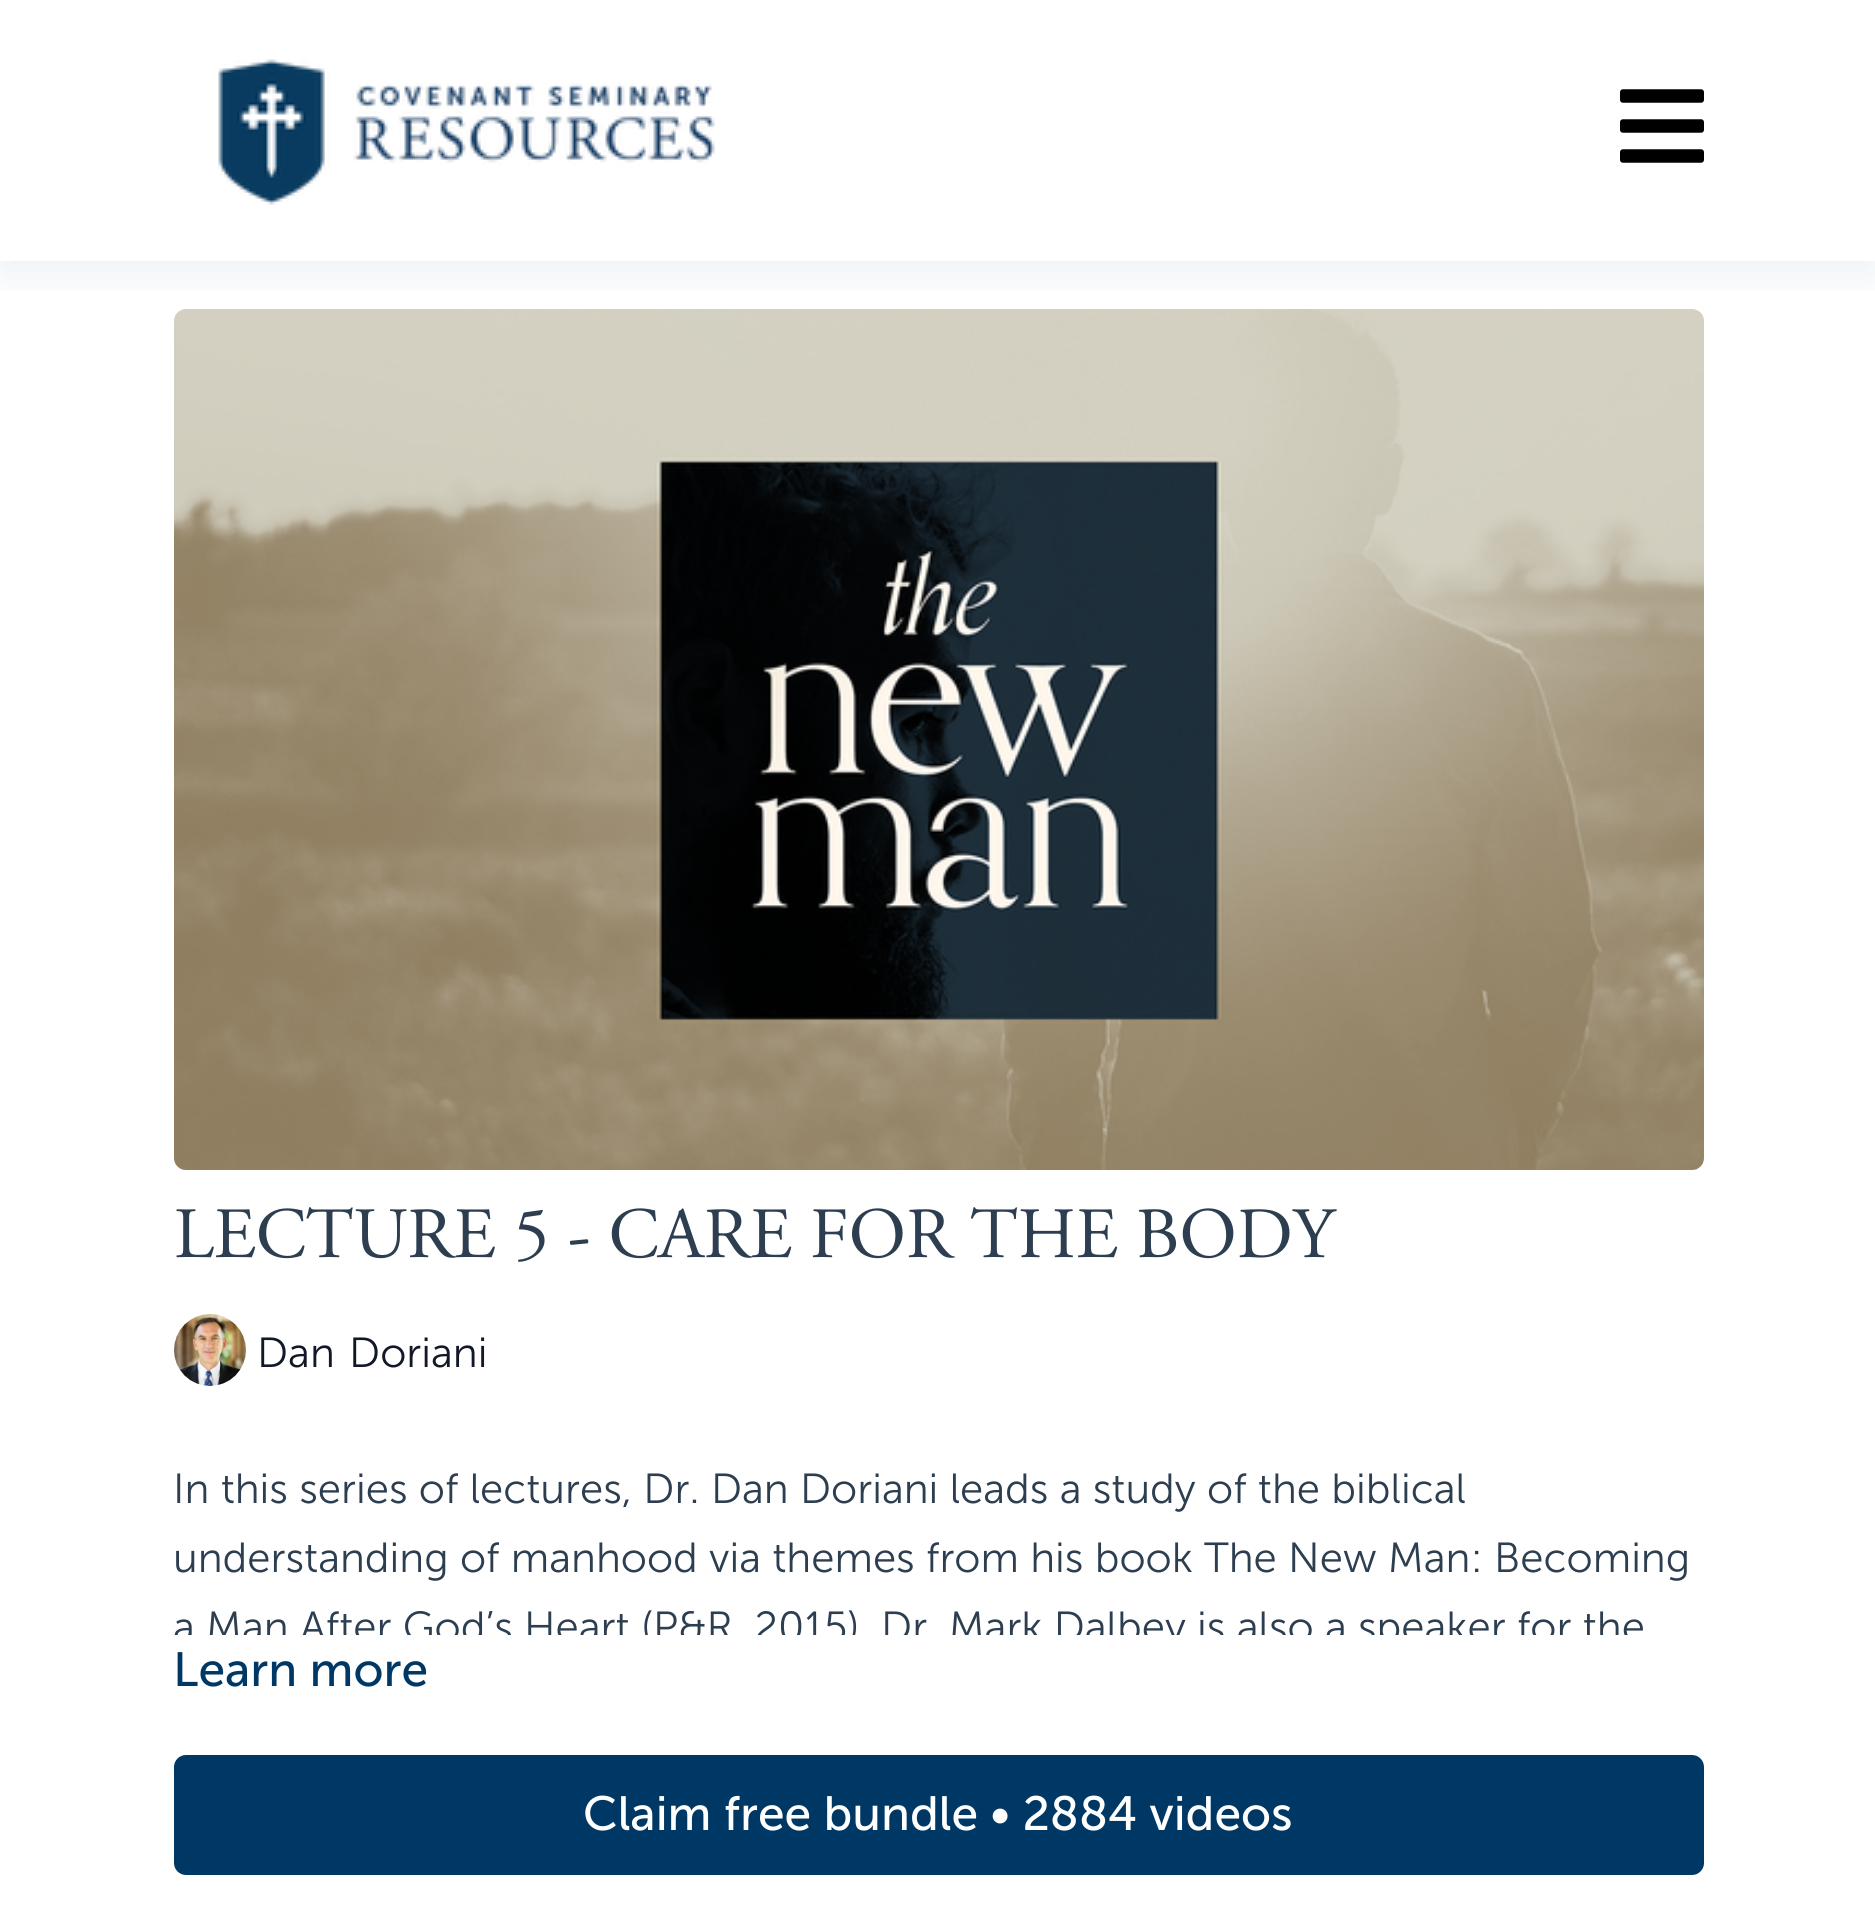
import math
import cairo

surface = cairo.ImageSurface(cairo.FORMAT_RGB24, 1875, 1906)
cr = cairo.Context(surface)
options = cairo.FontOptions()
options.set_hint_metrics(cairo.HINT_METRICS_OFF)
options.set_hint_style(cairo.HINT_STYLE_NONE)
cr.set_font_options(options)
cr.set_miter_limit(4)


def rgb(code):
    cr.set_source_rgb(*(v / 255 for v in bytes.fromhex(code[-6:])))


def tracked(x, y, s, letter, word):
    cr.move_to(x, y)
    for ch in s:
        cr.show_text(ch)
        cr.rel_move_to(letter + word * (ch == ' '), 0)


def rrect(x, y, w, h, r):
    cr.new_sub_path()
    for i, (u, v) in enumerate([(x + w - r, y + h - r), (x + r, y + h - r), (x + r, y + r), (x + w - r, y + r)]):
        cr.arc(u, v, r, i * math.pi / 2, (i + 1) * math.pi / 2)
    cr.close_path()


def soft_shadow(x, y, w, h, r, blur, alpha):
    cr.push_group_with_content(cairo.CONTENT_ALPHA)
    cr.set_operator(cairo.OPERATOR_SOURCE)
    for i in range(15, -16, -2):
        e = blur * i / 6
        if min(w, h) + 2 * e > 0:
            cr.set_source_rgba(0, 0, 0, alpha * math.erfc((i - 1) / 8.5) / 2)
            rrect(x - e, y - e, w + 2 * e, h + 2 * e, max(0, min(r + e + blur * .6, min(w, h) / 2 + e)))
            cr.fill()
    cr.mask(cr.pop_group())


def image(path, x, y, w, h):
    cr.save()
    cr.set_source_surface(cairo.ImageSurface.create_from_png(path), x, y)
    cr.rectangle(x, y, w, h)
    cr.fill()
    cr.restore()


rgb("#ffffff")
cr.paint()
image("img/3.png", 174, 309, 1530, 861)
cr.save()
cr.rectangle(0, 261, 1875, 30)
cr.clip()
rgb("#0e5a88")
soft_shadow(0, 15, 1875, 261, 0, 22.5, 0.08)
cr.restore()
image("img/1.png", 218, 59, 497, 146)
image("img/2.png", 1620, 89, 84, 74)
image("img/4.png", 176, 1207, 1161, 55)
image("img/5.png", 174, 1314, 72, 72)
rgb("#003865")
rrect(174, 1755, 1530, 120, 12)
cr.fill()
cr.select_font_face("Museo Sans Light")
cr.set_font_size(42)
rgb("#111827")
tracked(257, 1367, "Dan Doriani", 0, 3)
rgb("#2c3e50")
cr.move_to(173, 1503)
cr.show_text("In this series of lectures, Dr. Dan Doriani leads a study of the biblical")
cr.move_to(173, 1572)
cr.show_text("understanding of manhood via themes from his book The New Man: Becoming")
cr.save()
cr.rectangle(174, 1455, 1530, 180)
cr.clip()
cr.move_to(173, 1641)
cr.show_text("a Man After God’s Heart (P&R, 2015). Dr. Mark Dalbey is also a speaker for the")
cr.restore()
cr.select_font_face("Museo Sans")
cr.set_font_size(48)
rgb("#003865")
cr.move_to(173, 1686)
cr.show_text("Learn more")
rgb("#ffffff")
cr.move_to(583, 1830)
cr.show_text("Claim free bundle • 2884 videos")
surface.write_to_png("page.png")
